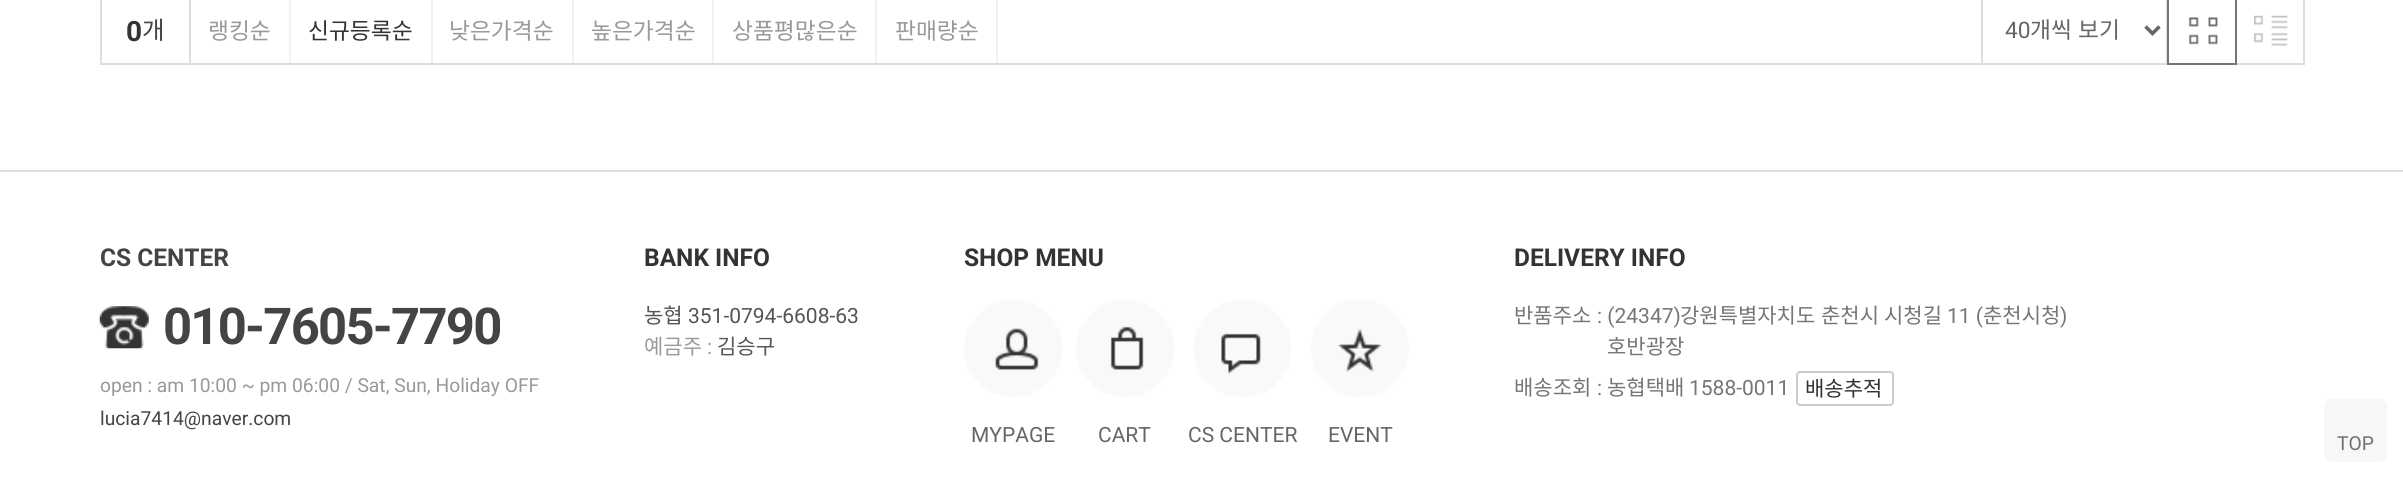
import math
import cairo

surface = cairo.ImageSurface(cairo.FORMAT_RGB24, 2403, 478)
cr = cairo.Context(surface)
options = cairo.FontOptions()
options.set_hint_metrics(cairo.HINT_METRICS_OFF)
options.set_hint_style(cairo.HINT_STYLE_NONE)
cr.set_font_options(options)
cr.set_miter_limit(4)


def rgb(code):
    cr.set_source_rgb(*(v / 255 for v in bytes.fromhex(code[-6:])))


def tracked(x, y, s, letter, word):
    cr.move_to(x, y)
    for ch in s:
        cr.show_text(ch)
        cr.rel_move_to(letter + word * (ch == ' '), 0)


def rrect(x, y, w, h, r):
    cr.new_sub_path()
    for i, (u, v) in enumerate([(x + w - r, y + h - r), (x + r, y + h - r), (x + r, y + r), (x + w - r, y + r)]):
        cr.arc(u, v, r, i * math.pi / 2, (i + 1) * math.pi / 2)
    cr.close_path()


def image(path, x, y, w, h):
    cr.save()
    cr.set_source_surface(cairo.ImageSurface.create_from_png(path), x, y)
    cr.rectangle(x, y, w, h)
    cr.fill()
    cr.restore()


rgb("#ffffff")
cr.paint()
for x, y, w, h, color in [
    (100, 63, 1881, 2, "#dddddd"),
    (189, 0, 2, 63, "#dddddd"),
    (100, 0, 2, 63, "#dddddd"),
    (289, 0, 2, 63, "#f1f1f1"),
    (431, 0, 2, 63, "#f1f1f1"),
    (572, 0, 2, 63, "#f1f1f1"),
    (712, 0, 2, 63, "#f1f1f1"),
    (875, 0, 2, 63, "#f1f1f1"),
    (996, 0, 2, 63, "#f1f1f1"),
]:
    rgb(color)
    cr.rectangle(x, y, w, h)
    cr.fill()
cr.rectangle(1982, -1, 185, 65)
rgb("#dddddd")
cr.stroke()
cr.new_path()
cr.move_to(2145.5, 26.5)
cr.line_to(2152.5, 33.5)
cr.line_to(2159.5, 26.5)
rgb("#666666")
cr.set_line_width(3.5)
cr.stroke()
image("img/1.png", 2188, 17, 30, 28)
image("img/2.png", 2254, 15, 34, 31)
cr.rectangle(2236, -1, 68, 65)
rgb("#dddddd")
cr.set_line_width(2)
cr.stroke()
cr.rectangle(2168, -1, 68, 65)
rgb("#767676")
cr.stroke()
rgb("#dddddd")
cr.rectangle(0, 170, 2403, 2)
cr.fill()
image("img/3.png", 99, 306, 50, 43)
image("img/4.png", 964, 299, 98, 98)
image("img/5.png", 1076, 299, 98, 98)
image("img/6.png", 1194, 299, 97, 98)
image("img/7.png", 1311, 299, 98, 98)
rrect(1797, 372, 96, 33, 3)
rgb("#cccccc")
cr.stroke()
rgb("#f7f7f7")
rrect(2324, 399, 63, 63, 7)
cr.fill()
cr.select_font_face("Roboto", cairo.FONT_SLANT_NORMAL, cairo.FONT_WEIGHT_BOLD)
cr.set_font_size(28)
rgb("#333333")
cr.move_to(126, 41)
cr.show_text("0")
cr.select_font_face("Noto Sans KR")
cr.set_font_size(24.5)
rgb("#444444")
cr.move_to(142, 39)
cr.show_text("개")
cr.set_font_size(22.75)
rgb("#999999")
cr.move_to(208, 39)
cr.show_text("랭킹순")
rgb("#333333")
cr.move_to(308, 39)
cr.show_text("신규등록순")
rgb("#999999")
for x, y, s in [
    (449, 39, "낮은가격순"),
    (591, 39, "높은가격순"),
    (732, 39, "상품평많은순"),
    (895, 39, "판매량순"),
]:
    cr.move_to(x, y)
    cr.show_text(s)
cr.select_font_face("Roboto")
rgb("#666666")
cr.move_to(2005, 38)
cr.show_text("40")
cr.select_font_face("Noto Sans KR")
tracked(2030, 38, "개씩 보기", 0, 1)
cr.select_font_face("Roboto", cairo.FONT_SLANT_NORMAL, cairo.FONT_WEIGHT_BOLD)
cr.set_font_size(24.5)
rgb("#444444")
cr.move_to(100, 266)
cr.show_text("CS CENTER")
cr.set_font_size(50.75)
tracked(163, 344, "010-7605-7790", -1.75, 0)
cr.select_font_face("Roboto")
cr.set_font_size(19.25)
rgb("#999999")
cr.move_to(100, 392)
cr.show_text("open : am 10:00 ~ pm 06:00 / Sat, Sun, Holiday OFF")
rgb("#444444")
cr.move_to(100, 425)
cr.show_text("lucia7414@naver.com")
cr.select_font_face("Roboto", cairo.FONT_SLANT_NORMAL, cairo.FONT_WEIGHT_BOLD)
cr.set_font_size(24.5)
rgb("#333333")
cr.move_to(644, 266)
cr.show_text("BANK INFO")
cr.select_font_face("Noto Sans KR")
cr.set_font_size(21)
rgb("#555555")
cr.move_to(644, 323)
cr.show_text("농협")
cr.select_font_face("Roboto")
cr.move_to(688, 323)
cr.show_text("351-0794-6608-63")
cr.select_font_face("Noto Sans KR")
rgb("#999999")
cr.move_to(644, 354)
cr.show_text("예금주")
cr.select_font_face("Roboto")
cr.move_to(707, 354)
cr.show_text(":")
cr.select_font_face("Noto Sans KR")
rgb("#555555")
cr.move_to(717, 354)
cr.show_text("김승구")
cr.select_font_face("Roboto", cairo.FONT_SLANT_NORMAL, cairo.FONT_WEIGHT_BOLD)
cr.set_font_size(24.5)
rgb("#333333")
cr.move_to(964, 266)
cr.show_text("SHOP MENU")
cr.select_font_face("Roboto")
cr.set_font_size(21)
rgb("#666666")
for x, y, s in [
    (971, 442, "MYPAGE"),
    (1098, 442, "CART"),
    (1188, 442, "CS CENTER"),
    (1328, 442, "EVENT"),
]:
    cr.move_to(x, y)
    cr.show_text(s)
cr.select_font_face("Roboto", cairo.FONT_SLANT_NORMAL, cairo.FONT_WEIGHT_BOLD)
cr.set_font_size(24.5)
rgb("#333333")
cr.move_to(1514, 266)
cr.show_text("DELIVERY INFO")
cr.select_font_face("Noto Sans KR")
cr.set_font_size(21)
rgb("#767676")
cr.move_to(1514, 323)
cr.show_text("반품주소")
cr.select_font_face("Roboto")
cr.move_to(1597, 323)
cr.show_text(": (24347)")
cr.select_font_face("Noto Sans KR")
for x, y, s in [
    (1680, 323, "강원특별자치도"),
    (1821, 323, "춘천시"),
    (1884, 323, "시청길"),
]:
    cr.move_to(x, y)
    cr.show_text(s)
cr.select_font_face("Roboto")
cr.move_to(1947, 323)
cr.show_text("11 (")
cr.select_font_face("Noto Sans KR")
cr.move_to(1983, 323)
cr.show_text("춘천시청")
cr.select_font_face("Roboto")
cr.move_to(2060, 323)
cr.show_text(")")
cr.select_font_face("Noto Sans KR")
cr.move_to(1607, 354)
cr.show_text("호반광장")
cr.move_to(1514, 395)
cr.show_text("배송조회")
cr.select_font_face("Roboto")
cr.move_to(1597, 395)
cr.show_text(":")
cr.select_font_face("Noto Sans KR")
cr.move_to(1607, 395)
cr.show_text("농협택배")
cr.select_font_face("Roboto")
cr.move_to(1689, 395)
cr.show_text("1588-0011")
cr.select_font_face("Noto Sans KR")
rgb("#333333")
cr.move_to(1805, 396)
cr.show_text("배송추적")
cr.select_font_face("Roboto")
cr.set_font_size(19.25)
rgb("#707070")
cr.move_to(2337, 450)
cr.show_text("TOP")
surface.write_to_png("page.png")
